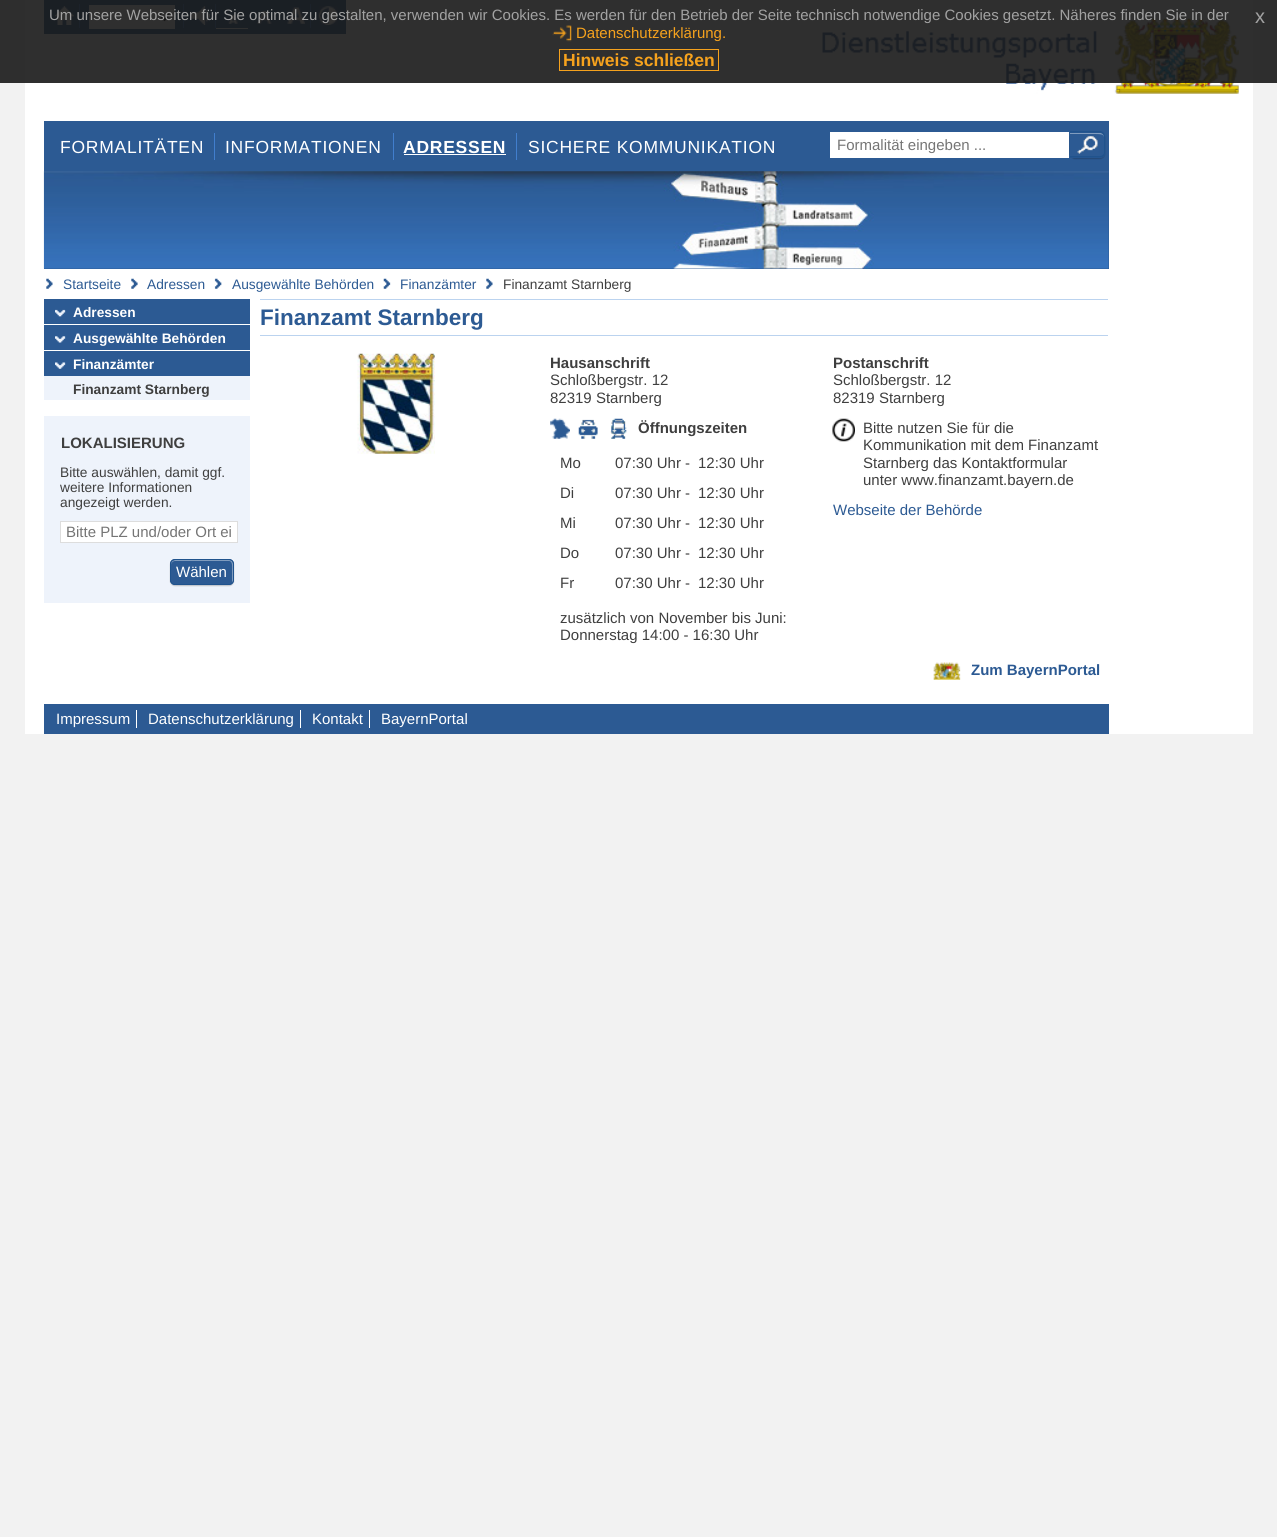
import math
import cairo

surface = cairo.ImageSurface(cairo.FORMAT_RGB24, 1277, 1537)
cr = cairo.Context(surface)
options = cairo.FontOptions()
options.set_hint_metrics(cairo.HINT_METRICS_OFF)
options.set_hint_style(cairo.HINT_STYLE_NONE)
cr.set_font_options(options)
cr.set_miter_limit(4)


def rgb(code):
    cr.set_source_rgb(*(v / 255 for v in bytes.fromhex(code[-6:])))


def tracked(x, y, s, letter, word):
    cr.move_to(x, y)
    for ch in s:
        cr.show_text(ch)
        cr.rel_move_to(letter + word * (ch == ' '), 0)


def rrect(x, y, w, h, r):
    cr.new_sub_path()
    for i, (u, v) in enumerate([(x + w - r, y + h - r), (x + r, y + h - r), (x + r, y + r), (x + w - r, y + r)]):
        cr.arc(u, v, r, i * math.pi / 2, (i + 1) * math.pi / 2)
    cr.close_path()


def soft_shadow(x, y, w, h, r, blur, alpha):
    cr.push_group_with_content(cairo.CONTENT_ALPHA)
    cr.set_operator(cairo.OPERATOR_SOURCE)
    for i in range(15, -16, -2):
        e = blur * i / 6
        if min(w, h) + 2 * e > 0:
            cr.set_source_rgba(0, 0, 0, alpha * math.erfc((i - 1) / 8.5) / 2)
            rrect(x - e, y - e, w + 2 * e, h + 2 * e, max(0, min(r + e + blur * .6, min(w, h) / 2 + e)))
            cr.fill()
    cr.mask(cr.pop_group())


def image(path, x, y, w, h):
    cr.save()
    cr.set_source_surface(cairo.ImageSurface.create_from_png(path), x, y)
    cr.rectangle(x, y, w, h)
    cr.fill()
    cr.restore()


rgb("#f2f2f2")
cr.paint()
for x, y, w, h, color in [
    (25, 0, 1228, 734, "#ffffff"),
    (44, 0, 302, 34, "#2c5a93"),
    (79, 4, 1, 24, "#417ecd"),
]:
    rgb(color)
    cr.rectangle(x, y, w, h)
    cr.fill()
image("img/2.png", 55, 6, 19, 19)
cr.rectangle(183, 4, 1, 24)
cr.fill()
rgb("#ffffff")
cr.rectangle(89, 5, 86, 24)
cr.fill()
cr.new_path()
cr.move_to(159.5, 14.5)
cr.line_to(164.5, 19.5)
cr.line_to(169.5, 14.5)
rgb("#000000")
cr.set_line_width(2.5)
cr.stroke()
rgb("#417ecd")
cr.rectangle(215, 4, 1, 24)
cr.fill()
image("img/3.png", 191, 6, 19, 19)
rgb("#ffffff")
cr.rectangle(216, 28, 32, 1)
cr.fill()
image("img/4.png", 228, 14, 10, 10)
image("img/5.png", 257, 11, 15, 13)
rgb("#417ecd")
cr.rectangle(310, 4, 1, 24)
cr.fill()
image("img/6.png", 287, 7, 18, 17)
image("img/7.png", 318, 6, 20, 19)
image("img/8.png", 822, 18, 417, 76)
cr.set_source_rgba(0.098, 0.098, 0.098, 0.9)
cr.rectangle(0, 0, 1277, 83)
cr.fill()
image("img/1.png", 552, 25, 20, 17)
cr.rectangle(559.5, 49.5, 159, 21)
rgb("#f6a21d")
cr.set_line_width(1)
cr.stroke()
for x, y, w, h, color in [
    (44, 121, 1065, 148, "#2c5a93"),
    (214, 133, 1, 27, "#417ecd"),
    (393, 133, 1, 27, "#417ecd"),
    (516, 133, 1, 27, "#417ecd"),
    (404, 154, 102, 1, "#ffffff"),
    (830, 132, 239, 26, "#ffffff"),
]:
    rgb(color)
    cr.rectangle(x, y, w, h)
    cr.fill()
rgb("#000000")
soft_shadow(1070, 133, 35, 26, 5, 0.5, 0.2)
rgb("#2c5a93")
cr.new_path()
cr.move_to(1070, 131)
cr.line_to(1100, 131)
cr.curve_to(1103, 131, 1105, 133, 1105, 136)
cr.line_to(1105, 153)
cr.curve_to(1105, 156, 1103, 158, 1100, 158)
cr.line_to(1070, 158)
cr.close_path()
cr.fill()
rgb("#809cbe")
cr.new_path()
cr.move_to(1070, 134)
cr.line_to(1095, 134)
cr.curve_to(1101.5, 134, 1103.5, 134.5, 1104, 137)
cr.curve_to(1104, 135, 1102, 133, 1100, 133)
cr.line_to(1070, 133)
cr.close_path()
cr.fill()
rgb("#20538d")
cr.set_fill_rule(cairo.FILL_RULE_EVEN_ODD)
cr.new_path()
cr.move_to(1070, 131)
cr.line_to(1100, 131)
cr.curve_to(1103, 131, 1105, 133.5, 1105, 136)
cr.line_to(1105, 152.5)
cr.curve_to(1105, 155.5, 1103, 157.5, 1100, 157.5)
cr.line_to(1070, 157.5)
cr.close_path()
cr.move_to(1070, 132.5)
cr.line_to(1100, 132.5)
cr.curve_to(1102, 132.5, 1104, 134, 1104, 136)
cr.line_to(1104, 152.5)
cr.curve_to(1104, 154.5, 1102, 156, 1100, 156)
cr.line_to(1070, 156)
cr.close_path()
cr.fill()
image("img/9.png", 1077, 136, 21, 18)
image("img/10.png", 43, 171, 1066, 98)
image("img/11.png", 46, 278, 7, 11)
image("img/12.png", 131, 278, 7, 11)
image("img/13.png", 214, 278, 8, 11)
image("img/14.png", 383, 278, 8, 11)
image("img/11.png", 486, 278, 7, 11)
rgb("#2c5a93")
cr.rectangle(44, 299, 206, 25)
cr.fill()
image("img/15.png", 55, 309, 11, 8)
cr.rectangle(44, 325, 206, 25)
cr.fill()
image("img/16.png", 55, 336, 11, 7)
cr.rectangle(44, 351, 206, 25)
cr.fill()
image("img/17.png", 55, 362, 11, 7)
rgb("#eef3fb")
cr.rectangle(44, 376, 206, 24)
cr.fill()
cr.rectangle(44, 416, 206, 187)
cr.fill()
rgb("#ffffff")
cr.rectangle(60.5, 521.5, 177, 21)
cr.fill_preserve()
rgb("#dddddd")
cr.stroke()
rgb("#000000")
soft_shadow(170, 560, 64, 26, 5, 0.5, 0.2)
rgb("#2c5a93")
rrect(170, 559, 64, 26, 5)
cr.fill()
rgb("#809cbe")
cr.set_fill_rule(cairo.FILL_RULE_WINDING)
cr.new_path()
cr.move_to(175, 561)
cr.line_to(229, 561)
cr.curve_to(233, 561, 232, 568, 232, 570)
cr.line_to(232, 583)
cr.curve_to(234, 581, 233, 575, 233, 572)
cr.curve_to(233, 569, 235, 560, 229, 560)
cr.line_to(184, 560)
cr.curve_to(179, 560, 171, 558, 171, 565)
cr.curve_to(171, 563, 173, 561, 175, 561)
cr.close_path()
cr.fill()
rrect(170.5, 559.5, 63, 25, 4.5)
rgb("#20538d")
cr.stroke()
rgb("#bbd3ef")
cr.rectangle(260, 299, 848, 1)
cr.fill()
cr.rectangle(260, 335, 848, 1)
cr.fill()
image("img/18.png", 357, 353, 78, 101)
image("img/19.png", 550, 418, 20, 21)
image("img/20.png", 578, 419, 20, 20)
image("img/21.png", 610, 418, 17, 21)
image("img/22.png", 832, 418, 23, 24)
image("img/23.png", 933, 662, 28, 18)
for x, y, w, h, color in [
    (44, 704, 1065, 30, "#2c5a93"),
    (136, 710, 1, 18, "#ffffff"),
    (300, 710, 1, 18, "#ffffff"),
    (369, 710, 1, 18, "#ffffff"),
]:
    rgb(color)
    cr.rectangle(x, y, w, h)
    cr.fill()
cr.select_font_face("Liberation Sans")
cr.set_font_size(15)
rgb("#a2a2a2")
cr.move_to(49, 20)
cr.show_text("Um unsere Webseiten für Sie optimal zu gestalten, verwenden wir Cookies. Es werden für den Betrieb der Seite technisch notwendige Cookies gesetzt. Näheres finden Sie in der")
rgb("#f6a21d")
cr.move_to(576, 38)
cr.show_text("Datenschutzerklärung.")
cr.set_font_size(20)
rgb("#a2a2a2")
cr.move_to(1255, 23)
cr.show_text("x")
cr.select_font_face("Liberation Sans", cairo.FONT_SLANT_NORMAL, cairo.FONT_WEIGHT_BOLD)
cr.set_font_size(17.5)
rgb("#f6a21d")
cr.move_to(563, 66)
cr.show_text("Hinweis schließen")
cr.select_font_face("Liberation Sans")
rgb("#ffffff")
tracked(60, 153, "FORMALITÄTEN", 0.75, 0)
tracked(225, 153, "INFORMATIONEN", 0.75, 0)
cr.select_font_face("Liberation Sans", cairo.FONT_SLANT_NORMAL, cairo.FONT_WEIGHT_BOLD)
tracked(403, 153, "ADRESSEN", 0.75, 0)
cr.select_font_face("Liberation Sans")
tracked(528, 153, "SICHERE KOMMUNIKATION", 0.75, 0)
cr.set_font_size(15)
rgb("#757575")
cr.move_to(837, 150)
cr.show_text("Formalität eingeben ...")
cr.set_font_size(13.75)
rgb("#2c5a93")
for x, y, s in [
    (63, 289, "Startseite"),
    (147, 289, "Adressen"),
    (232, 289, "Ausgewählte Behörden"),
    (400, 289, "Finanzämter"),
]:
    cr.move_to(x, y)
    cr.show_text(s)
rgb("#3f3f3f")
cr.move_to(503, 289)
cr.show_text("Finanzamt Starnberg")
cr.select_font_face("Liberation Sans", cairo.FONT_SLANT_NORMAL, cairo.FONT_WEIGHT_BOLD)
rgb("#ffffff")
for x, y, s in [
    (73, 317, "Adressen"),
    (73, 343, "Ausgewählte Behörden"),
    (73, 369, "Finanzämter"),
]:
    cr.move_to(x, y)
    cr.show_text(s)
rgb("#3f3f3f")
cr.move_to(73, 394)
cr.show_text("Finanzamt Starnberg")
cr.set_font_size(15)
cr.move_to(61, 448)
cr.show_text("LOKALISIERUNG")
cr.select_font_face("Liberation Sans")
cr.set_font_size(13.75)
for x, y, s in [
    (60, 477, "Bitte auswählen, damit ggf."),
    (60, 492, "weitere Informationen"),
    (60, 507, "angezeigt werden."),
]:
    cr.move_to(x, y)
    cr.show_text(s)
cr.save()
cr.rectangle(66, 524, 165, 17)
cr.clip()
cr.set_font_size(15)
rgb("#757575")
cr.move_to(66, 537)
cr.show_text("Bitte PLZ und/oder Ort ei")
cr.restore()
cr.set_font_size(15)
rgb("#ffffff")
cr.move_to(176, 577)
cr.show_text("Wählen")
cr.select_font_face("Liberation Sans", cairo.FONT_SLANT_NORMAL, cairo.FONT_WEIGHT_BOLD)
cr.set_font_size(22.5)
rgb("#2c5a93")
cr.move_to(260, 325)
cr.show_text("Finanzamt Starnberg")
cr.set_font_size(15)
rgb("#3f3f3f")
cr.move_to(550, 368)
cr.show_text("Hausanschrift")
cr.select_font_face("Liberation Sans")
cr.move_to(550, 385)
cr.show_text("Schloßbergstr. 12")
cr.move_to(550, 403)
cr.show_text("82319 Starnberg")
cr.select_font_face("Liberation Sans", cairo.FONT_SLANT_NORMAL, cairo.FONT_WEIGHT_BOLD)
cr.move_to(638, 433)
cr.show_text("Öffnungszeiten")
cr.select_font_face("Liberation Sans")
for x, y, s in [
    (560, 468, "Mo"),
    (615, 468, "07:30 Uhr -"),
    (698, 468, "12:30 Uhr"),
    (560, 498, "Di"),
    (615, 498, "07:30 Uhr -"),
    (698, 498, "12:30 Uhr"),
    (560, 528, "Mi"),
    (615, 528, "07:30 Uhr -"),
    (698, 528, "12:30 Uhr"),
    (560, 558, "Do"),
    (615, 558, "07:30 Uhr -"),
    (698, 558, "12:30 Uhr"),
    (560, 588, "Fr"),
    (615, 588, "07:30 Uhr -"),
    (698, 588, "12:30 Uhr"),
    (560, 623, "zusätzlich von November bis Juni:"),
    (560, 640, "Donnerstag 14:00 - 16:30 Uhr"),
]:
    cr.move_to(x, y)
    cr.show_text(s)
cr.select_font_face("Liberation Sans", cairo.FONT_SLANT_NORMAL, cairo.FONT_WEIGHT_BOLD)
cr.move_to(833, 368)
cr.show_text("Postanschrift")
cr.select_font_face("Liberation Sans")
for x, y, s in [
    (833, 385, "Schloßbergstr. 12"),
    (833, 403, "82319 Starnberg"),
    (863, 433, "Bitte nutzen Sie für die"),
    (863, 450, "Kommunikation mit dem Finanzamt"),
    (863, 468, "Starnberg das Kontaktformular"),
    (863, 485, "unter www.finanzamt.bayern.de"),
]:
    cr.move_to(x, y)
    cr.show_text(s)
rgb("#2c5a93")
cr.move_to(833, 515)
cr.show_text("Webseite der Behörde")
cr.select_font_face("Liberation Sans", cairo.FONT_SLANT_NORMAL, cairo.FONT_WEIGHT_BOLD)
cr.move_to(971, 675)
cr.show_text("Zum BayernPortal")
cr.select_font_face("Liberation Sans")
rgb("#ffffff")
for x, y, s in [
    (56, 724, "Impressum"),
    (148, 724, "Datenschutzerklärung"),
    (312, 724, "Kontakt"),
    (381, 724, "BayernPortal"),
]:
    cr.move_to(x, y)
    cr.show_text(s)
surface.write_to_png("page.png")
